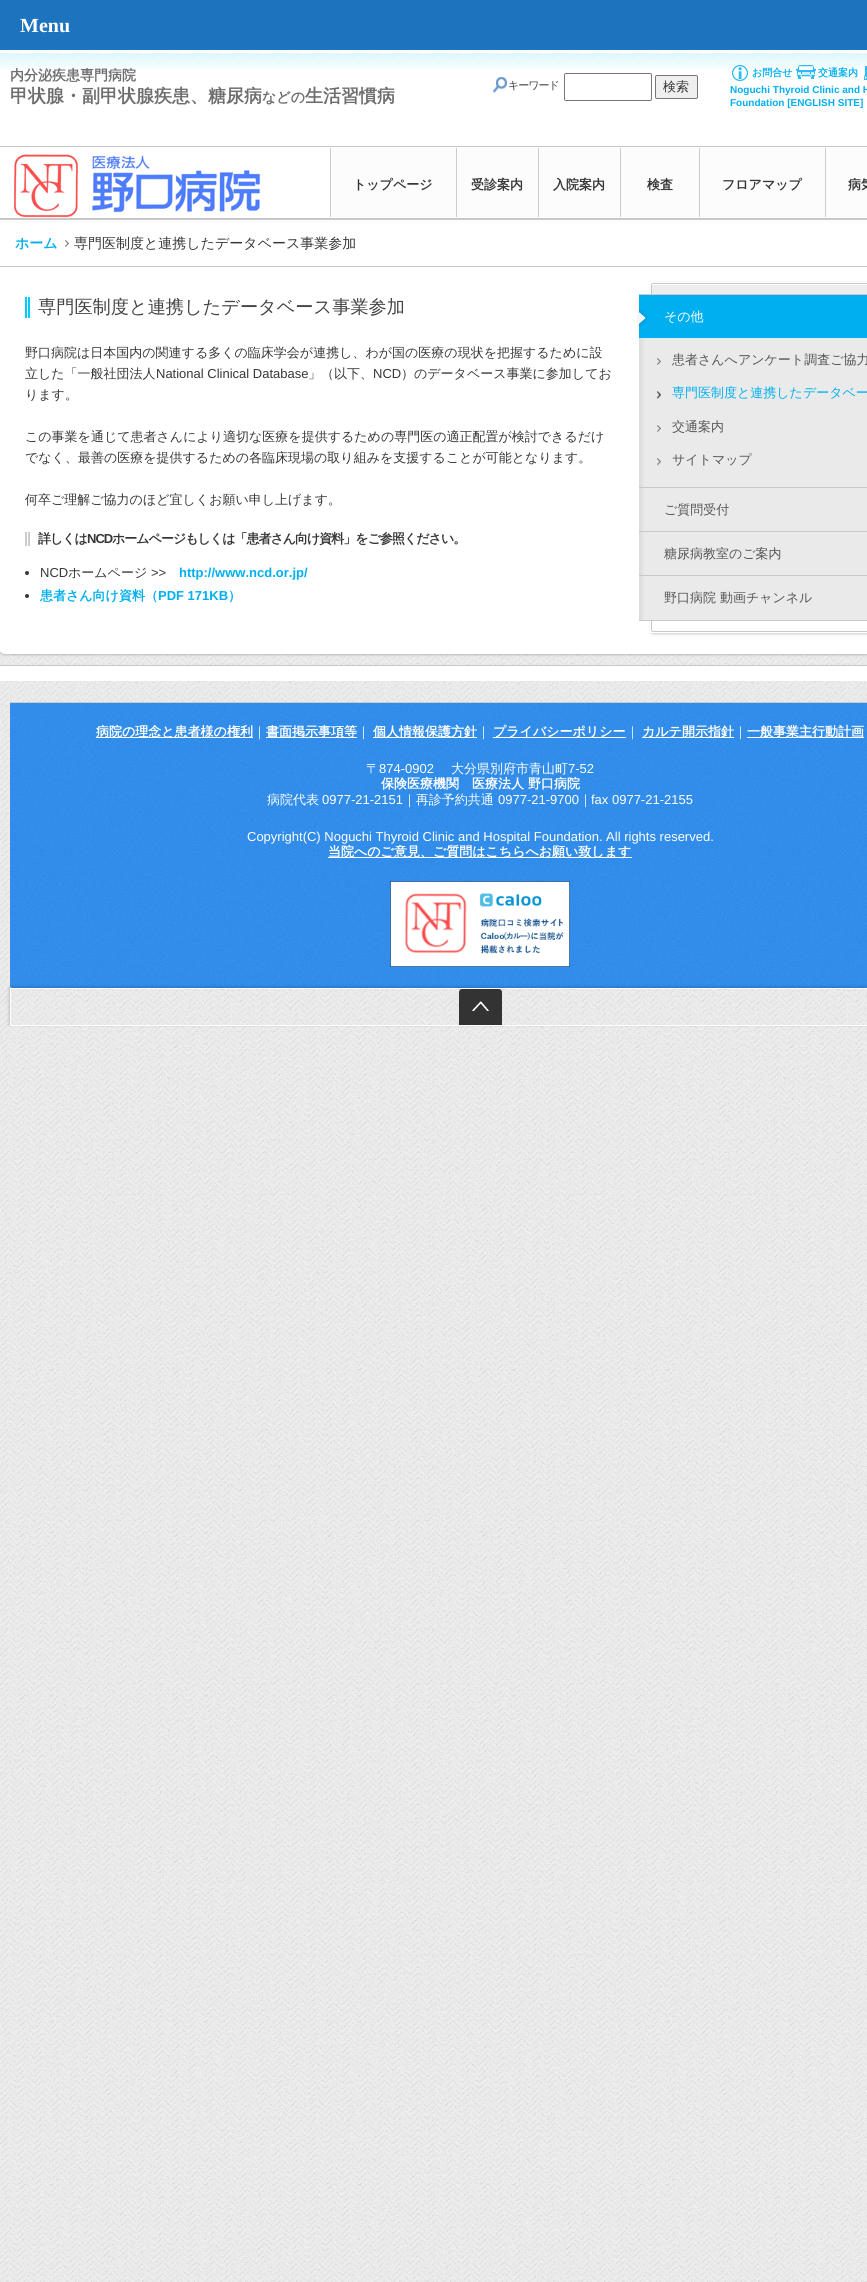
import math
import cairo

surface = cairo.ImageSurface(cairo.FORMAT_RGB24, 867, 2282)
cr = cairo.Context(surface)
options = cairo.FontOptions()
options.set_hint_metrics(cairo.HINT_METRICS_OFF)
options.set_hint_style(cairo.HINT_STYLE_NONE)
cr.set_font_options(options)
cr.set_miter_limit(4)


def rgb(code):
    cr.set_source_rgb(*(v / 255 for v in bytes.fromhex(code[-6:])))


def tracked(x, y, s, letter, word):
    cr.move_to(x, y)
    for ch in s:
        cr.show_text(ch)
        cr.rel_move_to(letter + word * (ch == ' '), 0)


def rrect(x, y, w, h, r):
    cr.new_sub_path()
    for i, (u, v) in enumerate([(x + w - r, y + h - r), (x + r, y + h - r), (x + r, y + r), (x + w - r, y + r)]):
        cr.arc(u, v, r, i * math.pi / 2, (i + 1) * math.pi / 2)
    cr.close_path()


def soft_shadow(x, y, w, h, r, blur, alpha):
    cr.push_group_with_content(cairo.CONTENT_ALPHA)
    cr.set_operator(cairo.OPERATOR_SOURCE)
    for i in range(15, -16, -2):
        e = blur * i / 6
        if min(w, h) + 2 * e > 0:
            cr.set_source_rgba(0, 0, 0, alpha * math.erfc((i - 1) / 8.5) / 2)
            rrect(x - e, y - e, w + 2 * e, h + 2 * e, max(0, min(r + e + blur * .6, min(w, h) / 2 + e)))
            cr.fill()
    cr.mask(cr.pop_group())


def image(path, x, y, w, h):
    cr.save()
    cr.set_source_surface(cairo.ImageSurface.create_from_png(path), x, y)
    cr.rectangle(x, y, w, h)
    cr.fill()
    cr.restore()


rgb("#ffffff")
cr.paint()
image("img/1.png", 0, 653, 867, 1629)
rgb("#ffffff")
cr.rectangle(0, 666, 867, 15)
cr.fill()
rgb("#c8c8c8")
cr.rectangle(0, 665, 867, 1)
cr.fill()
rgb("#000000")
soft_shadow(-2, 50, 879, 605, 7, 1, 0.2)
rgb("#1e73be")
cr.rectangle(0, 0, 867, 50)
cr.fill()
rgb("#2e8ff0")
rrect(10, 702, 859, 286, 2)
cr.fill()
image("img/2.png", 10, 703, 857, 285)
for x, y, w, h, color in [
    (10, 702, 857, 1, "#cccccc"),
    (96, 737, 157, 1, "#ffffff"),
    (266, 737, 91, 1, "#ffffff"),
    (373, 737, 104, 1, "#ffffff"),
    (493, 737, 133, 1, "#ffffff"),
    (642, 737, 92, 1, "#ffffff"),
    (747, 737, 117, 1, "#ffffff"),
    (328, 857, 304, 1, "#ffffff"),
]:
    rgb(color)
    cr.rectangle(x, y, w, h)
    cr.fill()
image("img/3.png", 390, 881, 180, 86)
cr.save()
cr.set_fill_rule(cairo.FILL_RULE_EVEN_ODD)
cr.new_path()
cr.move_to(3, 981)
cr.line_to(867, 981)
cr.line_to(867, 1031)
cr.line_to(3, 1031)
cr.close_path()
cr.move_to(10, 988)
cr.line_to(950, 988)
cr.line_to(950, 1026)
cr.line_to(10, 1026)
cr.close_path()
cr.clip()
rgb("#000000")
soft_shadow(9, 987, 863, 38, 0, 1.5, 0.2)
cr.restore()
cr.rectangle(10.5, 988.5, 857, 37)
cr.set_line_width(1)
cr.stroke()
rgb("#333333")
cr.new_path()
cr.move_to(462, 989)
cr.line_to(499, 989)
cr.curve_to(500.5, 989, 502, 990.5, 502, 992)
cr.line_to(502, 1025)
cr.line_to(459, 1025)
cr.line_to(459, 992)
cr.curve_to(459, 990.5, 460.5, 989, 462, 989)
cr.close_path()
cr.fill()
image("img/4.png", 472, 1001, 17, 10)
rgb("#ffffff")
cr.new_path()
cr.move_to(-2, 50)
cr.line_to(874, 50)
cr.line_to(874, 648)
cr.curve_to(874, 652, 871, 655, 867, 655)
cr.line_to(5, 655)
cr.curve_to(1, 655, -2, 652, -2, 648)
cr.close_path()
cr.fill()
rgb("#c8c8c8")
cr.set_fill_rule(cairo.FILL_RULE_EVEN_ODD)
cr.new_path()
cr.move_to(-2, 50)
cr.line_to(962, 50)
cr.line_to(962, 648)
cr.curve_to(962, 652, 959, 655, 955, 655)
cr.line_to(5, 655)
cr.curve_to(1, 655, -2, 652, -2, 648)
cr.close_path()
cr.move_to(-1, 50)
cr.line_to(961, 50)
cr.line_to(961, 648)
cr.curve_to(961, 651, 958, 654, 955, 654)
cr.line_to(5, 654)
cr.curve_to(2, 654, -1, 651, -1, 648)
cr.close_path()
cr.fill()
rgb("#ffffff")
cr.new_path()
cr.move_to(-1, 50)
cr.line_to(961, 50)
cr.line_to(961, 647)
cr.curve_to(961, 651, 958, 654, 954, 654)
cr.line_to(6, 654)
cr.curve_to(2, 654, -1, 651, -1, 647)
cr.close_path()
cr.move_to(0, 50)
cr.line_to(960, 50)
cr.line_to(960, 647)
cr.curve_to(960, 650, 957, 653, 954, 653)
cr.line_to(6, 653)
cr.curve_to(3, 653, 0, 650, 0, 647)
cr.close_path()
cr.fill()
rgb("#c8c8c8")
cr.rectangle(0, 146, 867, 1)
cr.fill()
image("img/5.png", 0, 53, 867, 16)
cr.save()
cr.new_path()
cr.move_to(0, 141)
cr.line_to(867, 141)
cr.line_to(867, 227)
cr.line_to(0, 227)
cr.close_path()
cr.move_to(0, 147)
cr.line_to(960, 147)
cr.line_to(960, 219)
cr.line_to(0, 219)
cr.close_path()
cr.clip()
rgb("#000000")
soft_shadow(0, 148, 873, 72, 0, 2, 0.1)
cr.restore()
rgb("#ffffff")
cr.rectangle(0, 145, 867, 1)
cr.fill()
image("img/6.png", 493, 77, 14, 16)
rrect(564.5, 73.5, 87, 27, 1.5)
rgb("#767676")
cr.stroke()
rgb("#efefef")
rrect(655.5, 75.5, 42, 23, 1.5)
cr.fill_preserve()
rgb("#767676")
cr.stroke()
image("img/7.png", 732, 65, 16, 16)
image("img/8.png", 796, 65, 20, 14)
image("img/9.png", 864, 66, 3, 14)
rgb("#c8c8c8")
cr.rectangle(0, 218, 867, 2)
cr.fill()
image("img/10.png", 13, 154, 248, 64)
for x, y, w, h, color in [
    (331, 148, 125, 69, "#fcfcfc"),
    (456, 148, 1, 69, "#cccccc"),
    (330, 148, 1, 69, "#cccccc"),
    (457, 148, 81, 69, "#fcfcfc"),
    (538, 148, 1, 69, "#cccccc"),
    (539, 148, 81, 69, "#fcfcfc"),
    (620, 148, 1, 69, "#cccccc"),
    (621, 148, 78, 69, "#fcfcfc"),
    (699, 148, 1, 69, "#cccccc"),
    (700, 148, 125, 69, "#fcfcfc"),
    (825, 148, 1, 69, "#cccccc"),
    (826, 148, 41, 69, "#fcfcfc"),
    (0, 220, 867, 1, "#ffffff"),
    (0, 266, 867, 1, "#c8c8c8"),
]:
    rgb(color)
    cr.rectangle(x, y, w, h)
    cr.fill()
image("img/11.png", 65, 240, 4, 7)
for x, y, w, h, color in [
    (25, 297, 2, 21, "#00ccff"),
    (28, 297, 2, 21, "#00ccff"),
    (25, 532, 2, 14, "#cccccc"),
    (28, 532, 2, 14, "#cccccc"),
]:
    rgb(color)
    cr.rectangle(x, y, w, h)
    cr.fill()
rgb("#373737")
cr.arc(27, 573, 2, 0, 2 * math.pi)
cr.fill()
cr.arc(27, 596, 2, 0, 2 * math.pi)
cr.fill()
cr.save()
cr.new_path()
cr.move_to(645, 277)
cr.line_to(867, 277)
cr.line_to(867, 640)
cr.line_to(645, 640)
cr.close_path()
cr.move_to(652, 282)
cr.line_to(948, 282)
cr.curve_to(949, 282, 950, 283, 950, 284)
cr.line_to(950, 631)
cr.curve_to(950, 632, 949, 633, 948, 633)
cr.line_to(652, 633)
cr.curve_to(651, 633, 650, 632, 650, 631)
cr.line_to(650, 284)
cr.curve_to(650, 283, 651, 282, 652, 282)
cr.close_path()
cr.clip()
rgb("#000000")
soft_shadow(651, 283, 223, 351, 2, 1.5, 0.2)
cr.restore()
rrect(650.5, 282.5, 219, 350, 1.5)
rgb("#ffffff")
cr.stroke()
image("img/12.png", 652, 285, 215, 9)
rrect(651.5, 283.5, 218, 348, 1.5)
rgb("#c8c8c8")
cr.stroke()
rgb("#eaeaea")
cr.rectangle(639, 338, 228, 282)
cr.fill()
image("img/13.png", 639, 338, 5, 282)
for x, y, w, h, color in [
    (639, 294, 228, 1, "#c8c8c8"),
    (639, 487, 228, 1, "#c8c8c8"),
    (639, 295, 228, 43, "#00aff0"),
]:
    rgb(color)
    cr.rectangle(x, y, w, h)
    cr.fill()
image("img/14.png", 637, 309, 11, 18)
image("img/15.png", 657, 358, 4, 7)
image("img/16.png", 657, 391, 4, 8)
image("img/15.png", 657, 425, 4, 7)
image("img/17.png", 657, 458, 4, 8)
for x, y, w, h, color in [
    (639, 531, 228, 1, "#c8c8c8"),
    (639, 575, 228, 1, "#c8c8c8"),
    (639, 620, 228, 1, "#c8c8c8"),
]:
    rgb(color)
    cr.rectangle(x, y, w, h)
    cr.fill()
cr.select_font_face("Liberation Serif", cairo.FONT_SLANT_NORMAL, cairo.FONT_WEIGHT_BOLD)
cr.set_font_size(20)
rgb("#ffffff")
cr.move_to(20, 32)
cr.show_text("Menu")
cr.select_font_face("WenQuanYi Zen Hei", cairo.FONT_SLANT_NORMAL, cairo.FONT_WEIGHT_BOLD)
cr.set_font_size(13)
cr.move_to(96, 736)
cr.show_text("病院の理念と患者様の権利")
cr.select_font_face("WenQuanYi Zen Hei Medium")
cr.move_to(253, 736)
cr.show_text("｜")
cr.select_font_face("WenQuanYi Zen Hei", cairo.FONT_SLANT_NORMAL, cairo.FONT_WEIGHT_BOLD)
cr.move_to(266, 736)
cr.show_text("書面掲示事項等")
cr.select_font_face("WenQuanYi Zen Hei Medium")
cr.move_to(357, 736)
cr.show_text("｜")
cr.select_font_face("WenQuanYi Zen Hei", cairo.FONT_SLANT_NORMAL, cairo.FONT_WEIGHT_BOLD)
cr.move_to(373, 736)
cr.show_text("個人情報保護方針")
cr.select_font_face("WenQuanYi Zen Hei Medium")
cr.move_to(477, 736)
cr.show_text("｜")
cr.select_font_face("WenQuanYi Zen Hei", cairo.FONT_SLANT_NORMAL, cairo.FONT_WEIGHT_BOLD)
cr.move_to(493, 736)
cr.show_text("プライバシーポリシー")
cr.select_font_face("WenQuanYi Zen Hei Medium")
cr.move_to(626, 736)
cr.show_text("｜")
cr.select_font_face("WenQuanYi Zen Hei", cairo.FONT_SLANT_NORMAL, cairo.FONT_WEIGHT_BOLD)
cr.move_to(642, 736)
cr.show_text("カルテ開示指針")
cr.select_font_face("WenQuanYi Zen Hei Medium")
cr.move_to(734, 736)
cr.show_text("｜")
cr.select_font_face("WenQuanYi Zen Hei", cairo.FONT_SLANT_NORMAL, cairo.FONT_WEIGHT_BOLD)
cr.move_to(747, 736)
cr.show_text("一般事業主行動計画")
cr.select_font_face("WenQuanYi Zen Hei Medium")
cr.move_to(366, 773)
cr.show_text("〒")
cr.select_font_face("Liberation Sans")
cr.move_to(379, 773)
cr.show_text("874-0902")
cr.select_font_face("WenQuanYi Zen Hei Medium")
cr.move_to(451, 773)
cr.show_text("大分県別府市青山町")
cr.select_font_face("Liberation Sans")
cr.move_to(568, 773)
cr.show_text("7-52")
cr.select_font_face("WenQuanYi Zen Hei", cairo.FONT_SLANT_NORMAL, cairo.FONT_WEIGHT_BOLD)
cr.move_to(381, 788)
cr.show_text("保険医療機関　医療法人 野口病院")
cr.select_font_face("WenQuanYi Zen Hei Medium")
cr.move_to(267, 804)
cr.show_text("病院代表")
cr.select_font_face("Liberation Sans")
cr.move_to(322, 804)
cr.show_text("0977-21-2151")
cr.select_font_face("WenQuanYi Zen Hei Medium")
cr.move_to(403, 804)
cr.show_text("｜再診予約共通")
cr.select_font_face("Liberation Sans")
cr.move_to(498, 804)
cr.show_text("0977-21-9700")
cr.select_font_face("WenQuanYi Zen Hei Medium")
cr.move_to(579, 804)
cr.show_text("｜")
cr.select_font_face("Liberation Sans")
cr.move_to(591, 804)
cr.show_text("fax 0977-21-2155")
cr.move_to(247, 841)
cr.show_text("Copyright(C) Noguchi Thyroid Clinic and Hospital Foundation. All rights reserved.")
cr.select_font_face("WenQuanYi Zen Hei", cairo.FONT_SLANT_NORMAL, cairo.FONT_WEIGHT_BOLD)
cr.move_to(328, 856)
cr.show_text("当院へのご意見、ご質問はこちらへお願い致します")
cr.set_font_size(14)
rgb("#6e6e6e")
cr.move_to(10, 80)
cr.show_text("内分泌疾患専門病院")
cr.set_font_size(18)
cr.move_to(10, 102)
cr.show_text("甲状腺・副甲状腺疾患、糖尿病")
cr.set_font_size(14)
cr.move_to(262, 102)
cr.show_text("などの")
cr.set_font_size(18)
cr.move_to(305, 102)
cr.show_text("生活習慣病")
cr.select_font_face("WenQuanYi Zen Hei Medium")
cr.set_font_size(11)
rgb("#444444")
tracked(508, 89, "キーワード", -1, 0)
cr.set_font_size(13)
rgb("#373737")
cr.move_to(663, 91)
cr.show_text("検索")
cr.select_font_face("WenQuanYi Zen Hei", cairo.FONT_SLANT_NORMAL, cairo.FONT_WEIGHT_BOLD)
cr.set_font_size(10)
rgb("#00aff0")
cr.move_to(752, 76)
cr.show_text("お問合せ")
cr.move_to(818, 76)
cr.show_text("交通案内")
cr.select_font_face("Liberation Sans", cairo.FONT_SLANT_NORMAL, cairo.FONT_WEIGHT_BOLD)
cr.move_to(730, 93)
cr.show_text("Noguchi Thyroid Clinic and H")
cr.move_to(730, 106)
cr.show_text("Foundation [ENGLISH SITE]")
cr.select_font_face("WenQuanYi Zen Hei", cairo.FONT_SLANT_NORMAL, cairo.FONT_WEIGHT_BOLD)
cr.set_font_size(13)
rgb("#373737")
for x, y, s in [
    (353, 189, "トップページ"),
    (471, 189, "受診案内"),
    (553, 189, "入院案内"),
    (647, 189, "検査"),
    (722, 189, "フロアマップ"),
    (848, 189, "病気"),
]:
    cr.move_to(x, y)
    cr.show_text(s)
cr.set_font_size(14)
rgb("#00aff0")
cr.move_to(15, 248)
cr.show_text("ホーム")
cr.select_font_face("WenQuanYi Zen Hei Medium")
rgb("#373737")
cr.move_to(74, 248)
cr.show_text("専門医制度と連携したデータベース事業参加")
cr.set_font_size(18.2)
rgb("#444444")
cr.move_to(38, 313)
cr.show_text("専門医制度と連携したデータベース事業参加")
cr.set_font_size(13)
rgb("#373737")
cr.move_to(25, 357)
cr.show_text("野口病院は日本国内の関連する多くの臨床学会が連携し、わが国の医療の現状を把握するために設")
cr.move_to(25, 378)
cr.show_text("立した「一般社団法人")
cr.select_font_face("Liberation Sans")
cr.move_to(156, 378)
cr.show_text("National Clinical Database")
cr.select_font_face("WenQuanYi Zen Hei Medium")
cr.move_to(308, 378)
cr.show_text("」（以下、")
cr.select_font_face("Liberation Sans")
cr.move_to(373, 378)
cr.show_text("NCD")
cr.select_font_face("WenQuanYi Zen Hei Medium")
for x, y, s in [
    (401, 378, "）のデータベース事業に参加してお"),
    (25, 399, "ります。"),
    (25, 441, "この事業を通じて患者さんにより適切な医療を提供するための専門医の適正配置が検討できるだけ"),
    (25, 462, "でなく、最善の医療を提供するための各臨床現場の取り組みを支援することが可能となります。"),
    (25, 504, "何卒ご理解ご協力のほど宜しくお願い申し上げます。"),
]:
    cr.move_to(x, y)
    cr.show_text(s)
cr.select_font_face("WenQuanYi Zen Hei", cairo.FONT_SLANT_NORMAL, cairo.FONT_WEIGHT_BOLD)
tracked(38, 543, "詳しくは", -1, 0)
cr.select_font_face("Liberation Sans", cairo.FONT_SLANT_NORMAL, cairo.FONT_WEIGHT_BOLD)
tracked(87, 543, "NCD", -1, 0)
cr.select_font_face("WenQuanYi Zen Hei", cairo.FONT_SLANT_NORMAL, cairo.FONT_WEIGHT_BOLD)
tracked(112, 543, "ホームページもしくは「患者さん向け資料」をご参照ください。", -1, 0)
cr.select_font_face("Liberation Sans")
cr.move_to(40, 577)
cr.show_text("NCD")
cr.select_font_face("WenQuanYi Zen Hei Medium")
cr.move_to(68, 577)
cr.show_text("ホームページ")
cr.select_font_face("Liberation Sans")
cr.move_to(151, 577)
cr.show_text(">>")
cr.select_font_face("Liberation Sans", cairo.FONT_SLANT_NORMAL, cairo.FONT_WEIGHT_BOLD)
rgb("#00aff0")
cr.move_to(179, 577)
cr.show_text("http://www.ncd.or.jp/")
cr.select_font_face("WenQuanYi Zen Hei", cairo.FONT_SLANT_NORMAL, cairo.FONT_WEIGHT_BOLD)
cr.move_to(40, 600)
cr.show_text("患者さん向け資料（")
cr.select_font_face("Liberation Sans", cairo.FONT_SLANT_NORMAL, cairo.FONT_WEIGHT_BOLD)
cr.move_to(158, 600)
cr.show_text("PDF 171KB")
cr.select_font_face("WenQuanYi Zen Hei", cairo.FONT_SLANT_NORMAL, cairo.FONT_WEIGHT_BOLD)
cr.move_to(228, 600)
cr.show_text("）")
cr.select_font_face("WenQuanYi Zen Hei Medium")
rgb("#ffffff")
cr.move_to(664, 321)
cr.show_text("その他")
rgb("#555555")
cr.move_to(672, 364)
cr.show_text("患者さんへアンケート調査ご協力")
rgb("#00aff0")
cr.move_to(672, 397)
cr.show_text("専門医制度と連携したデータベー")
rgb("#555555")
for x, y, s in [
    (672, 431, "交通案内"),
    (672, 464, "サイトマップ"),
    (664, 514, "ご質問受付"),
    (664, 558, "糖尿病教室のご案内"),
    (664, 602, "野口病院 動画チャンネル"),
]:
    cr.move_to(x, y)
    cr.show_text(s)
surface.write_to_png("page.png")
